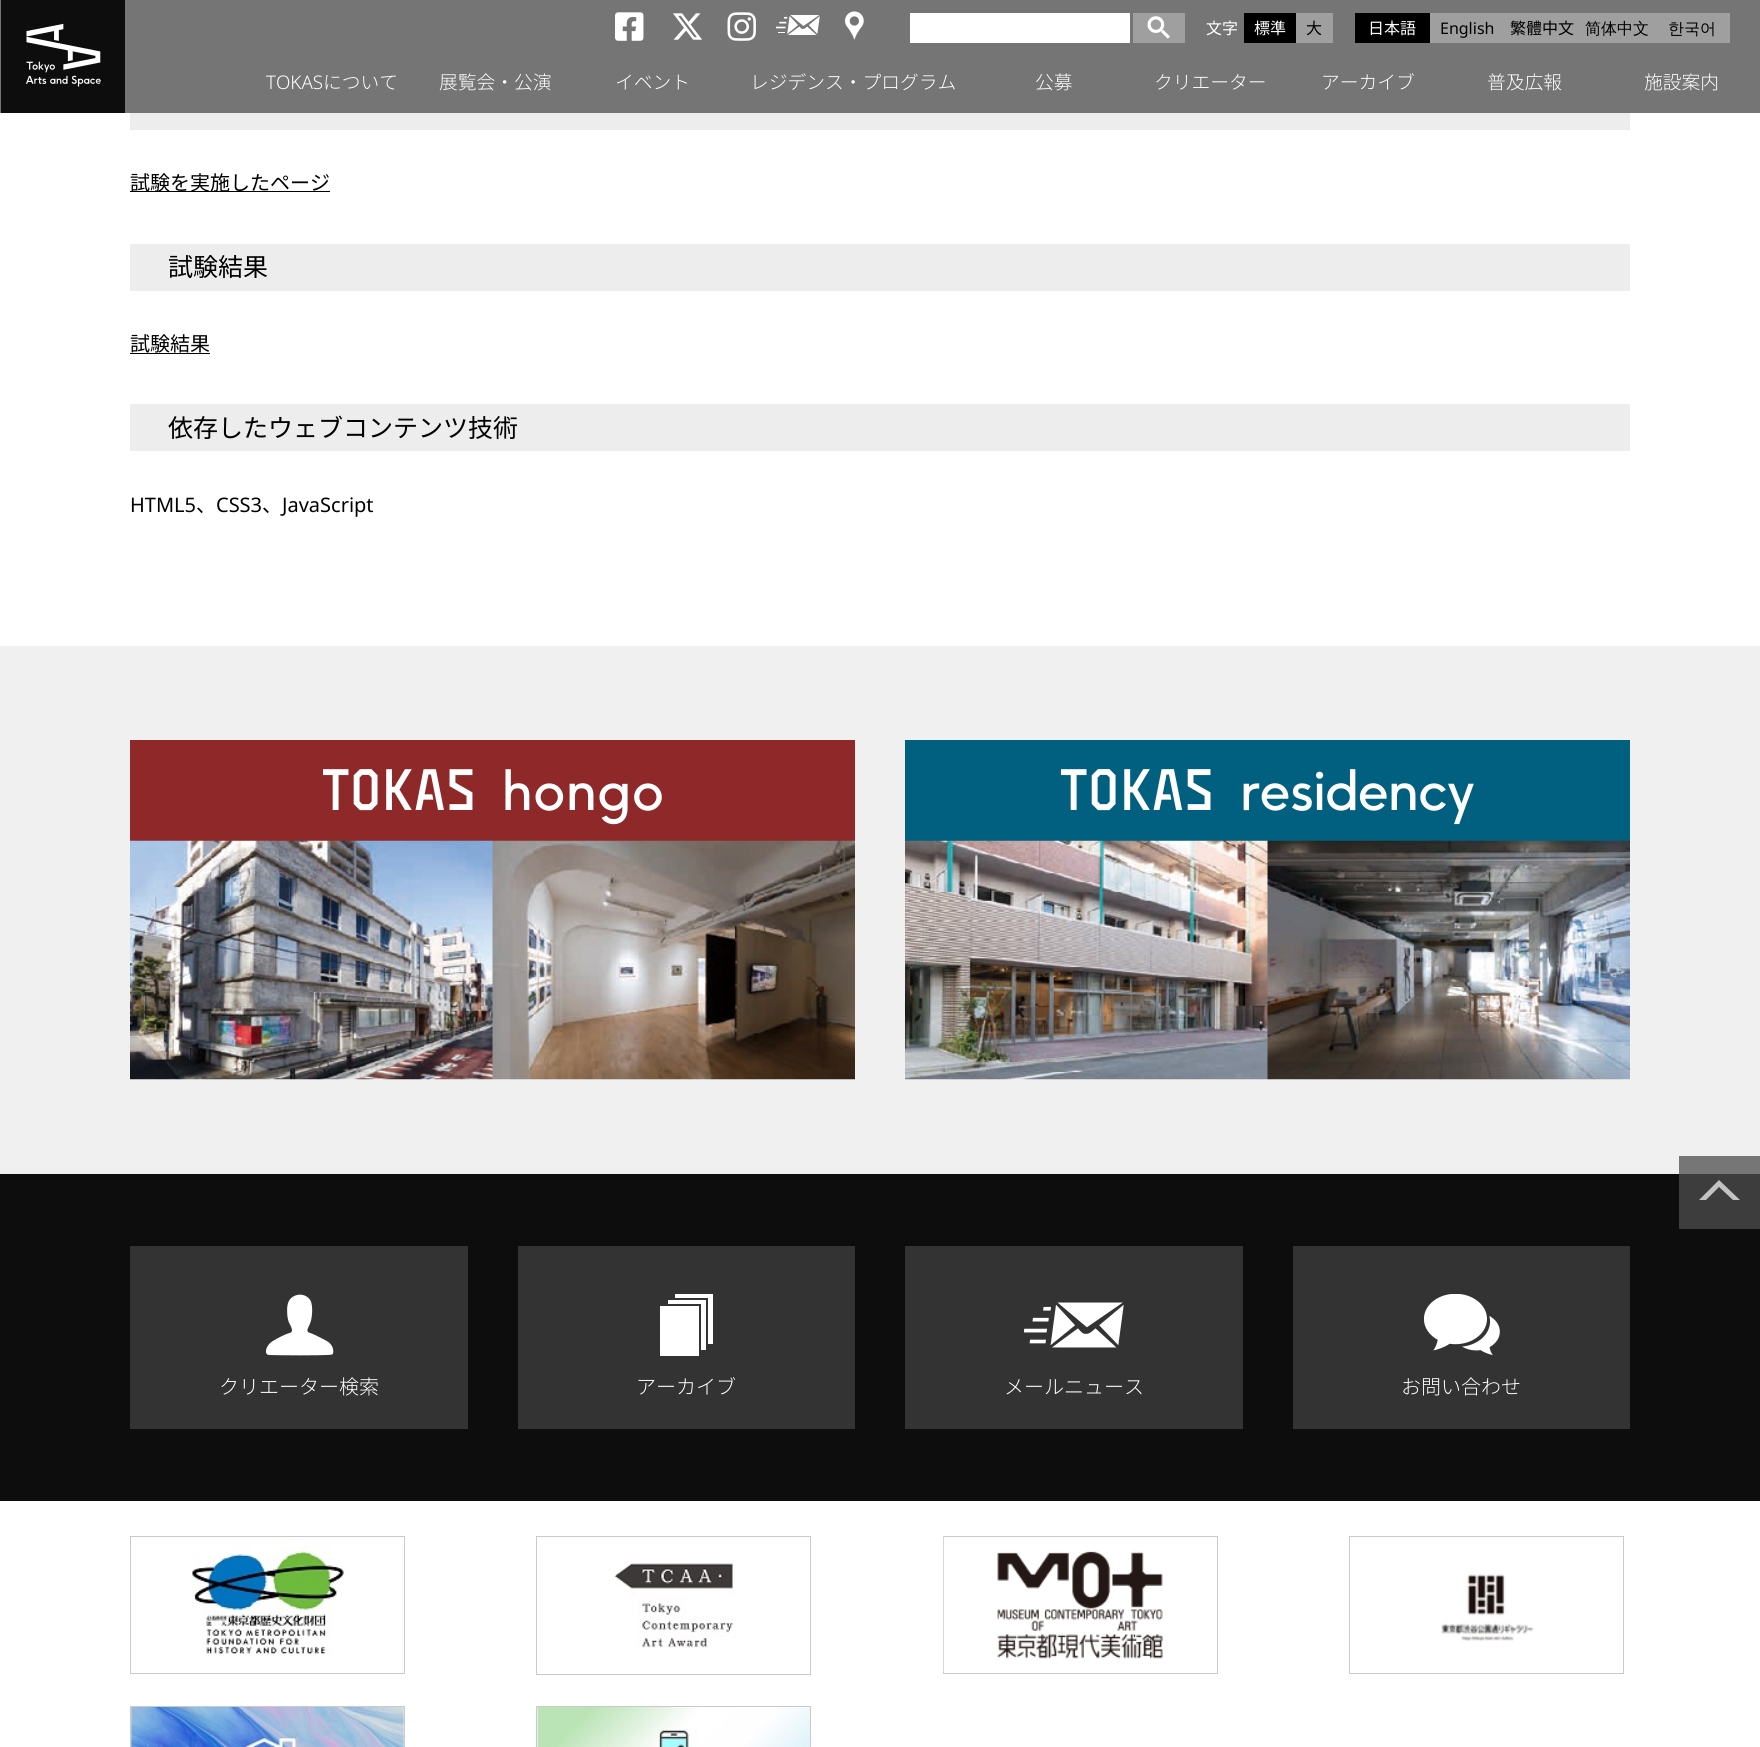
import math
import cairo

surface = cairo.ImageSurface(cairo.FORMAT_RGB24, 1760, 1747)
cr = cairo.Context(surface)
options = cairo.FontOptions()
options.set_hint_metrics(cairo.HINT_METRICS_OFF)
options.set_hint_style(cairo.HINT_STYLE_NONE)
cr.set_font_options(options)
cr.set_miter_limit(4)


def rgb(code):
    cr.set_source_rgb(*(v / 255 for v in bytes.fromhex(code[-6:])))


def image(path, x, y, w, h):
    cr.save()
    cr.set_source_surface(cairo.ImageSurface.create_from_png(path), x, y)
    cr.rectangle(x, y, w, h)
    cr.fill()
    cr.restore()


rgb("#ffffff")
cr.paint()
rgb("#757575")
cr.rectangle(0, 0, 1760, 113)
cr.fill()
image("img/1.png", 1, 0, 124, 113)
image("img/2.png", 615, 12, 29, 29)
image("img/3.png", 673, 13, 29, 27)
image("img/4.png", 727, 12, 29, 29)
image("img/5.png", 776, 15, 44, 20)
image("img/6.png", 845, 11, 19, 29)
rgb("#ffffff")
cr.rectangle(910, 13, 220, 30)
cr.fill()
rgb("#9f9f9f")
cr.rectangle(1133, 13, 52, 30)
cr.fill()
image("img/7.png", 1147, 16, 23, 23)
for x, y, w, h, color in [
    (1244, 13, 52, 30, "#000000"),
    (1296, 13, 37, 30, "#9f9f9f"),
    (1355, 13, 75, 30, "#000000"),
    (1430, 13, 300, 30, "#9f9f9f"),
    (130, 113, 1500, 17, "#ededed"),
    (130, 191, 200, 1, "#000000"),
    (130, 244, 1500, 47, "#ededed"),
    (130, 353, 80, 1, "#000000"),
    (130, 404, 1500, 47, "#ededed"),
    (0, 646, 1760, 528, "#f0f0f0"),
    (1679, 1156, 81, 18, "#767676"),
    (130, 740, 725, 101, "#8f2828"),
]:
    rgb(color)
    cr.rectangle(x, y, w, h)
    cr.fill()
image("img/8.png", 323, 769, 339, 56)
image("img/9.png", 130, 840, 725, 240)
rgb("#015f80")
cr.rectangle(905, 740, 725, 101)
cr.fill()
image("img/10.png", 1060, 769, 414, 56)
image("img/11.png", 905, 840, 725, 240)
for x, y, w, h, color in [
    (0, 1174, 1760, 327, "#0d0d0d"),
    (1679, 1174, 81, 55, "#3d3d3d"),
    (130, 1246, 338, 183, "#333333"),
]:
    rgb(color)
    cr.rectangle(x, y, w, h)
    cr.fill()
image("img/12.png", 265, 1294, 69, 62)
cr.rectangle(518, 1246, 337, 183)
cr.fill()
rgb("#ffffff")
cr.rectangle(660, 1306, 39, 50)
cr.fill()
cr.new_path()
cr.move_to(706, 1350)
cr.line_to(701, 1350)
cr.line_to(701, 1304)
cr.line_to(668, 1304)
cr.line_to(668, 1300)
cr.line_to(706, 1300)
cr.close_path()
cr.fill()
cr.new_path()
cr.move_to(713, 1344)
cr.line_to(708, 1344)
cr.line_to(708, 1298)
cr.line_to(675, 1298)
cr.line_to(675, 1294)
cr.line_to(713, 1294)
cr.close_path()
cr.fill()
rgb("#333333")
cr.rectangle(905, 1246, 338, 183)
cr.fill()
image("img/13.png", 1024, 1302, 100, 46)
cr.rectangle(1293, 1246, 337, 183)
cr.fill()
image("img/14.png", 1424, 1294, 76, 61)
cr.rectangle(130.5, 1536.5, 274, 137)
rgb("#cacaca")
cr.set_line_width(1)
cr.stroke()
image("img/15.png", 191, 1541, 159, 115)
cr.rectangle(536.5, 1536.5, 274, 138)
cr.stroke()
image("img/16.png", 614, 1562, 122, 86)
cr.rectangle(943.5, 1536.5, 274, 137)
cr.stroke()
image("img/17.png", 943, 1537, 220, 135)
cr.rectangle(1349.5, 1536.5, 274, 137)
cr.stroke()
image("img/18.png", 1441, 1574, 93, 67)
cr.rectangle(130.5, 1706.5, 274, 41)
cr.stroke()
image("img/19.png", 131, 1707, 273, 40)
cr.rectangle(536.5, 1706.5, 274, 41)
cr.stroke()
image("img/20.png", 537, 1707, 273, 40)
rgb("#c3c3c3")
cr.new_path()
cr.move_to(1733, 1200)
cr.line_to(1719, 1187)
cr.line_to(1706, 1200)
cr.line_to(1699, 1200)
cr.line_to(1719, 1180)
cr.line_to(1740, 1200)
cr.close_path()
cr.fill()
cr.select_font_face("Noto Sans JP")
cr.set_font_size(16)
rgb("#ffffff")
cr.move_to(1206, 34)
cr.show_text("文字")
cr.move_to(1254, 34)
cr.show_text("標準")
rgb("#000000")
cr.move_to(1306, 34)
cr.show_text("大")
rgb("#ffffff")
cr.move_to(1368, 34)
cr.show_text("日本語")
cr.select_font_face("Noto Sans")
rgb("#000000")
cr.move_to(1440, 34)
cr.show_text("English")
cr.select_font_face("Noto Sans JP")
cr.move_to(1510, 34)
cr.show_text("繁體中文")
cr.select_font_face("WenQuanYi Zen Hei Medium")
cr.move_to(1585, 34)
cr.show_text("简体中文")
cr.move_to(1668, 34)
cr.show_text("한국어")
cr.select_font_face("Noto Sans Light")
cr.set_font_size(18.75)
rgb("#ffffff")
cr.move_to(266, 89)
cr.show_text("TOKAS")
cr.select_font_face("Noto Sans JP Light")
for x, y, s in [
    (323, 89, "について"),
    (439, 89, "展覧会・公演"),
    (615, 89, "イベント"),
    (750, 89, "レジデンス・プログラム"),
    (1035, 89, "公募"),
    (1154, 89, "クリエーター"),
    (1321, 89, "アーカイブ"),
    (1487, 89, "普及広報"),
    (1644, 89, "施設案内"),
]:
    cr.move_to(x, y)
    cr.show_text(s)
cr.select_font_face("Noto Sans JP")
cr.set_font_size(20)
rgb("#000000")
cr.move_to(130, 190)
cr.show_text("試験を実施したページ")
cr.set_font_size(25)
cr.move_to(168, 276)
cr.show_text("試験結果")
cr.set_font_size(20)
cr.move_to(130, 351)
cr.show_text("試験結果")
cr.set_font_size(25)
cr.move_to(168, 437)
cr.show_text("依存したウェブコンテンツ技術")
cr.select_font_face("Noto Sans")
cr.set_font_size(20)
cr.move_to(130, 512)
cr.show_text("HTML5")
cr.select_font_face("Noto Sans JP")
cr.move_to(196, 512)
cr.show_text("、")
cr.select_font_face("Noto Sans")
cr.move_to(216, 512)
cr.show_text("CSS3")
cr.select_font_face("Noto Sans JP")
cr.move_to(262, 512)
cr.show_text("、")
cr.select_font_face("Noto Sans")
cr.move_to(282, 512)
cr.show_text("JavaScript")
cr.select_font_face("Noto Sans JP Light")
rgb("#ffffff")
for x, y, s in [
    (219, 1394, "クリエーター検索"),
    (636, 1394, "アーカイブ"),
    (1004, 1394, "メールニュース"),
    (1401, 1394, "お問い合わせ"),
]:
    cr.move_to(x, y)
    cr.show_text(s)
surface.write_to_png("page.png")
